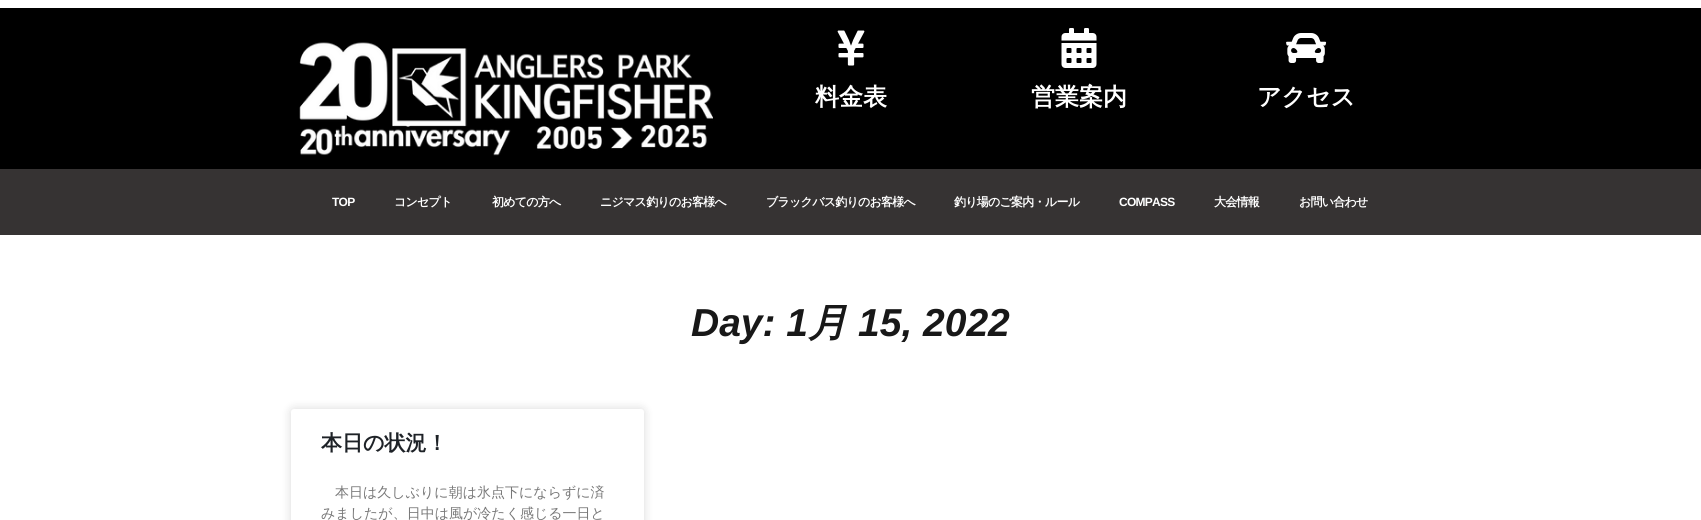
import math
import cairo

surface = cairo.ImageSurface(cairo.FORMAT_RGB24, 1701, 520)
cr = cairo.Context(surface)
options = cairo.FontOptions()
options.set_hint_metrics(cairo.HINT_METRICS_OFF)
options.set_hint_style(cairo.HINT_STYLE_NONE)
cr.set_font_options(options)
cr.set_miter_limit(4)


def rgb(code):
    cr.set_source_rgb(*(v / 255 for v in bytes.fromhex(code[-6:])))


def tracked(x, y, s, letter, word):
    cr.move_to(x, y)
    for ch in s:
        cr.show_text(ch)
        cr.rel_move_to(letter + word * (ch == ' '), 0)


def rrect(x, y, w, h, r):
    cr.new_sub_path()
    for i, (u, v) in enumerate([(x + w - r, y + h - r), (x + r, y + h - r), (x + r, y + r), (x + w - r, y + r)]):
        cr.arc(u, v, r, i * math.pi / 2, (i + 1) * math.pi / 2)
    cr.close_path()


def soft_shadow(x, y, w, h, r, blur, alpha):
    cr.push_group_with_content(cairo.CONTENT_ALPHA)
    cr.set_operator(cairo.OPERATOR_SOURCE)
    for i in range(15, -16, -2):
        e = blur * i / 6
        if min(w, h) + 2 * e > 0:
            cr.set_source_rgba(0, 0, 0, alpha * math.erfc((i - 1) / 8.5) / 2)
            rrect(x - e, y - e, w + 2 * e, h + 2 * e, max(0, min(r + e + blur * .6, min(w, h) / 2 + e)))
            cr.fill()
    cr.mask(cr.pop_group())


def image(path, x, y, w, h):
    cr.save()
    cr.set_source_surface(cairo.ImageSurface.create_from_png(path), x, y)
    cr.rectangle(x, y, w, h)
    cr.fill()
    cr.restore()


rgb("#ffffff")
cr.paint()
rgb("#000000")
cr.rectangle(0, 8, 1701, 161)
cr.fill()
image("img/1.png", 299, 42, 414, 114)
image("img/2.png", 837, 30, 28, 36)
image("img/3.png", 1061, 28, 36, 40)
image("img/4.png", 1286, 33, 41, 30)
rgb("#363333")
cr.rectangle(0, 169, 1701, 66)
cr.fill()
rgb("#000000")
soft_shadow(291, 409, 353, 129, 3, 5, 0.15)
rgb("#ffffff")
rrect(291, 409, 353, 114, 3)
cr.fill()
cr.select_font_face("WenQuanYi Zen Hei", cairo.FONT_SLANT_NORMAL, cairo.FONT_WEIGHT_BOLD)
cr.set_font_size(24)
for x, y, s in [
    (815, 105, "料金表"),
    (1031, 105, "営業案内"),
    (1257, 105, "アクセス"),
]:
    cr.move_to(x, y)
    cr.show_text(s)
cr.select_font_face("Liberation Sans", cairo.FONT_SLANT_NORMAL, cairo.FONT_WEIGHT_BOLD)
cr.set_font_size(12)
tracked(332, 206, "TOP", -0.75, 0)
cr.select_font_face("WenQuanYi Zen Hei", cairo.FONT_SLANT_NORMAL, cairo.FONT_WEIGHT_BOLD)
for x, y, s in [
    (394, 206, "コンセプト"),
    (492, 206, "初めての方へ"),
    (600, 206, "ニジマス釣りのお客様へ"),
    (766, 206, "ブラックバス釣りのお客様へ"),
    (954, 206, "釣り場のご案内・ルール"),
]:
    tracked(x, y, s, -0.75, 0)
cr.select_font_face("Liberation Sans", cairo.FONT_SLANT_NORMAL, cairo.FONT_WEIGHT_BOLD)
tracked(1119, 206, "COMPASS", -0.75, 0)
cr.select_font_face("WenQuanYi Zen Hei", cairo.FONT_SLANT_NORMAL, cairo.FONT_WEIGHT_BOLD)
tracked(1214, 206, "大会情報", -0.75, 0)
tracked(1299, 206, "お問い合わせ", -0.75, 0)
cr.select_font_face("Liberation Sans", cairo.FONT_SLANT_ITALIC, cairo.FONT_WEIGHT_BOLD)
cr.set_font_size(39)
rgb("#181818")
cr.move_to(691, 336)
cr.show_text("Day: 1")
cr.select_font_face("WenQuanYi Zen Hei", cairo.FONT_SLANT_ITALIC, cairo.FONT_WEIGHT_BOLD)
cr.move_to(808, 336)
cr.show_text("月")
cr.select_font_face("Liberation Sans", cairo.FONT_SLANT_ITALIC, cairo.FONT_WEIGHT_BOLD)
cr.move_to(858, 336)
cr.show_text("15, 2022")
cr.select_font_face("WenQuanYi Zen Hei", cairo.FONT_SLANT_NORMAL, cairo.FONT_WEIGHT_BOLD)
cr.set_font_size(21)
rgb("#1e2227")
cr.move_to(321, 450)
cr.show_text("本日の状況！")
cr.select_font_face("WenQuanYi Zen Hei Medium")
cr.set_font_size(14)
rgb("#777777")
cr.move_to(335, 497)
cr.show_text("本日は久しぶりに朝は氷点下にならずに済")
cr.move_to(321, 518)
cr.show_text("みましたが、日中は風が冷たく感じる一日と")
surface.write_to_png("page.png")
